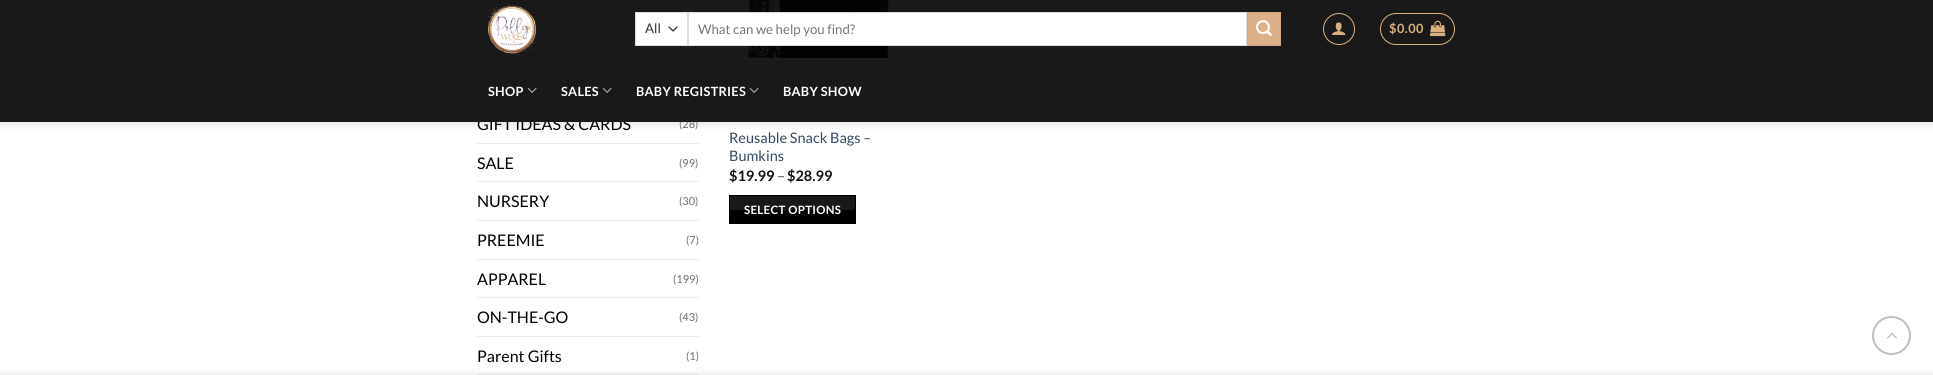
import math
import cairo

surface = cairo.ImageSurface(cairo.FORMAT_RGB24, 1933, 375)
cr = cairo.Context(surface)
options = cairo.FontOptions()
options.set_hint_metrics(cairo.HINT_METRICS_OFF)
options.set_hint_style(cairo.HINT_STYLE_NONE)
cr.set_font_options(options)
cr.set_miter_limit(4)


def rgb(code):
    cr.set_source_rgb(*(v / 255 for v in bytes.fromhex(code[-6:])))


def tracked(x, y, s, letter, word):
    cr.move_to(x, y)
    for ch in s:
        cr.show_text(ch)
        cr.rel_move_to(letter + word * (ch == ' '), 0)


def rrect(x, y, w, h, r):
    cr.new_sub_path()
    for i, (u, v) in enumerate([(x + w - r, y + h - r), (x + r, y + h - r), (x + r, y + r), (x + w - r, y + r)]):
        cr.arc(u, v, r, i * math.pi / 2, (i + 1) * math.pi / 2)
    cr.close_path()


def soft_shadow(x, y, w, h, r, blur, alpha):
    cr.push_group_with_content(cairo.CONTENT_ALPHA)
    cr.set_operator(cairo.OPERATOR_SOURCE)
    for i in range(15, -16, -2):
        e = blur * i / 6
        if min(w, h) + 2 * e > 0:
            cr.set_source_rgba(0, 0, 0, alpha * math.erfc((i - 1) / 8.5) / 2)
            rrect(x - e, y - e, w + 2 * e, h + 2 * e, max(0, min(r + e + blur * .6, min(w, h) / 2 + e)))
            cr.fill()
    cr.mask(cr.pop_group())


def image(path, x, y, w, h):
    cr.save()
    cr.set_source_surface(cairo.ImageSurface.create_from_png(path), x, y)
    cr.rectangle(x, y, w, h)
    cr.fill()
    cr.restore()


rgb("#ffffff")
cr.paint()
rgb("#ececec")
cr.rectangle(477, 27, 158, 1)
cr.fill()
image("img/6.png", 743, 0, 147, 58)
cr.save()
cr.rectangle(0, 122, 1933, 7)
cr.clip()
rgb("#000000")
soft_shadow(1, 1, 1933, 122, 0, 5, 0.15)
cr.restore()
cr.set_source_rgba(0, 0, 0, 0.9)
cr.rectangle(0, 0, 1933, 58)
cr.fill()
image("img/1.png", 486, 3, 51, 51)
rgb("#ffffff")
cr.rectangle(636, 13, 51, 32)
cr.fill()
cr.new_path()
cr.move_to(669, 27)
cr.line_to(673, 31)
cr.line_to(677, 27)
rgb("#333333")
cr.set_line_width(1.3)
cr.set_line_cap(cairo.LINE_CAP_ROUND)
cr.set_line_join(cairo.LINE_JOIN_ROUND)
cr.stroke()
cr.rectangle(635.5, 12.5, 52, 33)
rgb("#dddddd")
cr.set_line_width(1)
cr.set_line_cap(cairo.LINE_CAP_BUTT)
cr.set_line_join(cairo.LINE_JOIN_MITER)
cr.stroke()
rgb("#ffffff")
cr.rectangle(688.5, 12.5, 558, 33)
cr.fill_preserve()
rgb("#dddddd")
cr.stroke()
rgb("#dcb18a")
cr.rectangle(1247.5, 12.5, 33, 33)
cr.fill_preserve()
rgb("#d1a883")
cr.stroke()
image("img/2.png", 1256, 20, 16, 16)
cr.arc(1339, 29, 15.5, 0, 2 * math.pi)
rgb("#dcb182")
cr.stroke()
image("img/3.png", 1332, 22, 14, 13)
rrect(1380.5, 13.5, 74, 31, 15.5)
cr.stroke()
image("img/4.png", 1430, 20, 16, 17)
rgb("#ececec")
cr.rectangle(477, 143, 222, 1)
cr.rectangle(477, 181, 222, 1)
cr.rectangle(477, 220, 222, 1)
cr.rectangle(477, 259, 222, 1)
cr.rectangle(477, 297, 222, 1)
cr.rectangle(477, 336, 222, 1)
cr.rectangle(477, 374, 222, 1)
cr.fill()
rgb("#000000")
cr.rectangle(729, 195, 127, 29)
cr.fill()
cr.set_source_rgba(1, 1, 1, 0.1)
cr.rectangle(730, 196, 125, 14)
cr.fill()
cr.arc(1891.5, 335.5, 18.5, 0, 2 * math.pi)
rgb("#c0c0c0")
cr.set_line_width(2)
cr.stroke()
image("img/7.png", 1886, 332, 11, 7)
rgb("#000000")
soft_shadow(0, 375, 1933, 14, 0, 4.5, 0.14)
cr.select_font_face("Lato")
cr.set_font_size(13.25)
rgb("#333333")
cr.move_to(645, 33)
cr.show_text("All")
rgb("#757575")
cr.move_to(698, 34)
cr.show_text("What can we help you find?")
cr.select_font_face("Lato", cairo.FONT_SLANT_NORMAL, cairo.FONT_WEIGHT_BOLD)
cr.set_font_size(12.75)
rgb("#dcb182")
tracked(1389, 33, "$0.00", 0.5, 0)
cr.select_font_face("Lato")
cr.set_font_size(16)
rgb("#000000")
cr.move_to(477, 130)
cr.show_text("GIFT IDEAS & CARDS")
cr.set_font_size(11)
rgb("#6e6e6e")
cr.move_to(679, 128)
cr.show_text("(28)")
rgb("#191919")
cr.rectangle(0, 58, 1933, 64)
cr.fill()
rgb("#1e1e1e")
cr.rectangle(477, 58, 980, 1)
cr.fill()
cr.select_font_face("Lato", cairo.FONT_SLANT_NORMAL, cairo.FONT_WEIGHT_BOLD)
cr.set_font_size(12.75)
rgb("#ffffff")
tracked(783, 96, "BABY SHOW", 0.25, 0)
image("img/5.png", 749, 87, 10, 6)
tracked(636, 96, "BABY REGISTRIES", 0.25, 0)
image("img/5.png", 602, 87, 10, 6)
tracked(561, 96, "SALES", 0.25, 0)
image("img/5.png", 527, 87, 10, 6)
tracked(488, 96, "SHOP", 0.25, 0)
cr.select_font_face("Lato")
cr.set_font_size(16)
rgb("#000000")
cr.move_to(477, 169)
cr.show_text("SALE")
cr.set_font_size(11)
rgb("#6e6e6e")
cr.move_to(679, 167)
cr.show_text("(99)")
cr.set_font_size(16)
rgb("#000000")
cr.move_to(477, 207)
cr.show_text("NURSERY")
cr.set_font_size(11)
rgb("#6e6e6e")
cr.move_to(679, 205)
cr.show_text("(30)")
cr.set_font_size(16)
rgb("#000000")
cr.move_to(477, 246)
cr.show_text("PREEMIE")
cr.set_font_size(11)
rgb("#6e6e6e")
cr.move_to(686, 244)
cr.show_text("(7)")
cr.set_font_size(16)
rgb("#000000")
cr.move_to(477, 285)
cr.show_text("APPAREL")
cr.set_font_size(11)
rgb("#6e6e6e")
cr.move_to(673, 283)
cr.show_text("(199)")
cr.set_font_size(16)
rgb("#000000")
cr.move_to(477, 323)
cr.show_text("ON-THE-GO")
cr.set_font_size(11)
rgb("#6e6e6e")
cr.move_to(679, 321)
cr.show_text("(43)")
cr.set_font_size(16)
rgb("#000000")
cr.move_to(477, 362)
cr.show_text("Parent Gifts")
cr.set_font_size(11)
rgb("#6e6e6e")
cr.move_to(686, 360)
cr.show_text("(1)")
cr.set_font_size(14.5)
rgb("#334862")
cr.move_to(729, 143)
cr.show_text("Reusable Snack Bags –")
cr.move_to(729, 161)
cr.show_text("Bumkins")
cr.select_font_face("Lato", cairo.FONT_SLANT_NORMAL, cairo.FONT_WEIGHT_BOLD)
rgb("#111111")
cr.move_to(729, 181)
cr.show_text("$19.99")
cr.select_font_face("Lato")
rgb("#4a4a4a")
cr.move_to(777, 181)
cr.show_text("–")
cr.select_font_face("Lato", cairo.FONT_SLANT_NORMAL, cairo.FONT_WEIGHT_BOLD)
rgb("#111111")
cr.move_to(787, 181)
cr.show_text("$28.99")
cr.set_font_size(11.5)
rgb("#ffffff")
tracked(744, 214, "SELECT OPTIONS", 0.3, 0)
surface.write_to_png("page.png")
